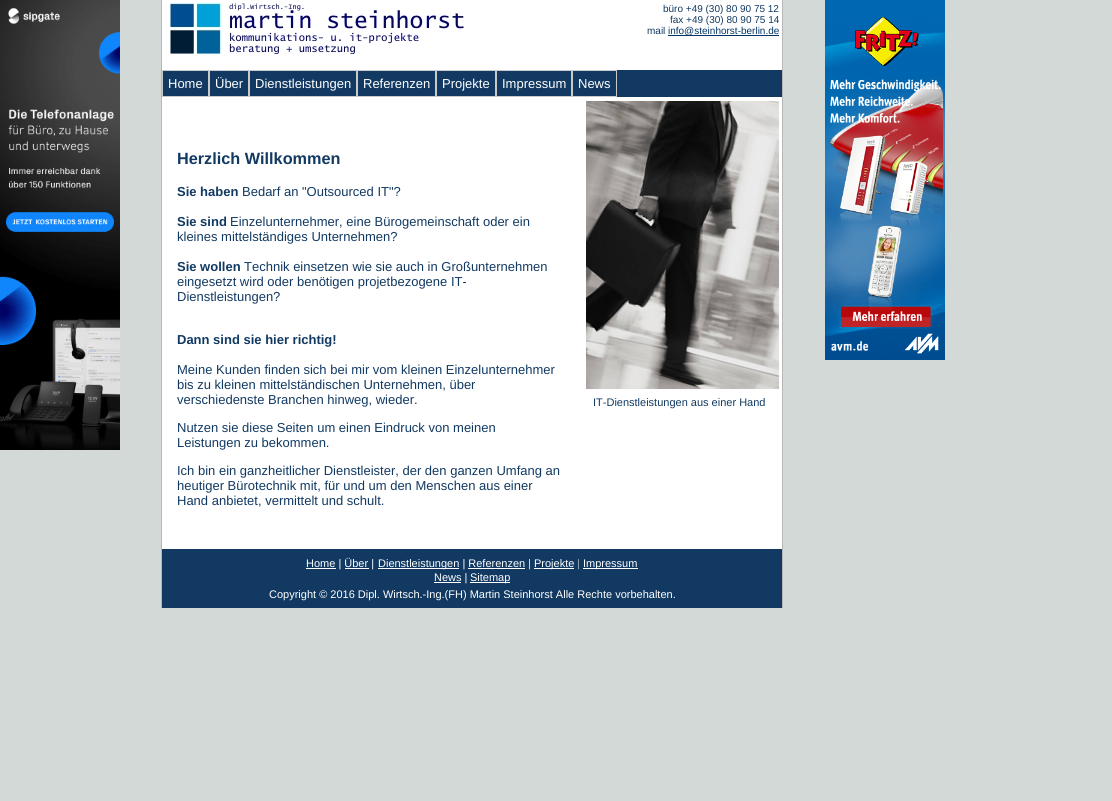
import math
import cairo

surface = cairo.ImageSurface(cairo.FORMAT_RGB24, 1112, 801)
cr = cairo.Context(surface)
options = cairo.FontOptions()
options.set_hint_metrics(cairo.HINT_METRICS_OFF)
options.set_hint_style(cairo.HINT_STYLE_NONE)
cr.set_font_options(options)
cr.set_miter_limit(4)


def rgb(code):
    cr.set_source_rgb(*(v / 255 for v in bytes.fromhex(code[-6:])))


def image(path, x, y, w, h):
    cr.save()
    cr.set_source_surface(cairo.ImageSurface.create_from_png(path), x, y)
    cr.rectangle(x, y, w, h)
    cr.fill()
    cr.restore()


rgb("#d3d9d6")
cr.paint()
image("img/1.png", 0, 0, 120, 450)
for x, y, w, h, color in [
    (162, 0, 620, 549, "#ffffff"),
    (782, 0, 1, 608, "#b7b7b7"),
    (161, 0, 1, 608, "#b7b7b7"),
]:
    rgb(color)
    cr.rectangle(x, y, w, h)
    cr.fill()
image("img/2.png", 169, 3, 295, 51)
rgb("#003366")
cr.rectangle(668, 35, 111, 1)
cr.fill()
rgb("#113962")
cr.rectangle(163, 70, 619, 27)
cr.fill()
cr.rectangle(162.5, 70.5, 46, 26)
rgb("#c9c9c9")
cr.set_line_width(1)
cr.stroke()
cr.rectangle(209.5, 70.5, 39, 26)
cr.stroke()
cr.rectangle(249.5, 70.5, 107, 26)
cr.stroke()
cr.rectangle(357.5, 70.5, 78, 26)
cr.stroke()
cr.rectangle(436.5, 70.5, 59, 26)
cr.stroke()
cr.rectangle(496.5, 70.5, 75, 26)
cr.stroke()
cr.rectangle(572.5, 70.5, 44, 26)
cr.stroke()
image("img/3.png", 586, 101, 193, 288)
for x, y, w, h, color in [
    (162, 549, 620, 59, "#113962"),
    (306, 568, 30, 1, "#ffffff"),
    (378, 568, 81, 1, "#ffffff"),
    (534, 568, 40, 1, "#ffffff"),
    (583, 568, 55, 1, "#ffffff"),
    (345, 568, 24, 1, "#ffffff"),
    (468, 568, 57, 1, "#ffffff"),
    (434, 582, 27, 1, "#ffffff"),
    (470, 582, 40, 1, "#ffffff"),
]:
    rgb(color)
    cr.rectangle(x, y, w, h)
    cr.fill()
image("img/4.png", 825, 0, 120, 360)
image("img/6.png", 829, 83, 114, 133)
image("img/5.png", 830, 79, 111, 13)
image("img/7.png", 830, 96, 83, 10)
image("img/8.png", 830, 113, 70, 10)
image("img/10.png", 839, 305, 94, 24)
image("img/9.png", 840, 135, 89, 176)
cr.select_font_face("Liberation Sans")
cr.set_font_size(10)
rgb("#113962")
for x, y, s in [
    (663, 12, "büro +49 (30) 80 90 75 12"),
    (670, 23, "fax +49 (30) 80 90 75 14"),
    (647, 34, "mail"),
]:
    cr.move_to(x, y)
    cr.show_text(s)
rgb("#003366")
cr.move_to(668, 34)
cr.show_text("info@steinhorst-berlin.de")
cr.set_font_size(13)
rgb("#ffffff")
for x, y, s in [
    (168, 88, "Home"),
    (215, 88, "Über"),
    (255, 88, "Dienstleistungen"),
    (363, 88, "Referenzen"),
    (442, 88, "Projekte"),
    (502, 88, "Impressum"),
    (578, 88, "News"),
]:
    cr.move_to(x, y)
    cr.show_text(s)
cr.select_font_face("Liberation Sans", cairo.FONT_SLANT_NORMAL, cairo.FONT_WEIGHT_BOLD)
cr.set_font_size(16.25)
rgb("#113962")
cr.move_to(177, 164)
cr.show_text("Herzlich Willkommen")
cr.set_font_size(13)
cr.move_to(177, 196)
cr.show_text("Sie haben")
cr.select_font_face("Liberation Sans")
cr.move_to(242, 196)
cr.show_text("Bedarf an \"Outsourced IT\"?")
cr.select_font_face("Liberation Sans", cairo.FONT_SLANT_NORMAL, cairo.FONT_WEIGHT_BOLD)
cr.move_to(177, 226)
cr.show_text("Sie sind")
cr.select_font_face("Liberation Sans")
cr.move_to(230, 226)
cr.show_text("Einzelunternehmer, eine Bürogemeinschaft oder ein")
cr.move_to(177, 241)
cr.show_text("kleines mittelständiges Unternehmen?")
cr.select_font_face("Liberation Sans", cairo.FONT_SLANT_NORMAL, cairo.FONT_WEIGHT_BOLD)
cr.move_to(177, 271)
cr.show_text("Sie wollen")
cr.select_font_face("Liberation Sans")
for x, y, s in [
    (244, 271, "Technik einsetzen wie sie auch in Großunternehmen"),
    (177, 286, "eingesetzt wird oder benötigen projetbezogene IT-"),
    (177, 301, "Dienstleistungen?"),
]:
    cr.move_to(x, y)
    cr.show_text(s)
cr.select_font_face("Liberation Sans", cairo.FONT_SLANT_NORMAL, cairo.FONT_WEIGHT_BOLD)
cr.move_to(177, 344)
cr.show_text("Dann sind sie hier richtig!")
cr.select_font_face("Liberation Sans")
for x, y, s in [
    (177, 374, "Meine Kunden finden sich bei mir vom kleinen Einzelunternehmer"),
    (177, 389, "bis zu kleinen mittelständischen Unternehmen, über"),
    (177, 404, "verschiedenste Branchen hinweg, wieder."),
    (177, 432, "Nutzen sie diese Seiten um einen Eindruck von meinen"),
    (177, 447, "Leistungen zu bekommen."),
    (177, 475, "Ich bin ein ganzheitlicher Dienstleister, der den ganzen Umfang an"),
    (177, 490, "heutiger Bürotechnik mit, für und um den Menschen aus einer"),
    (177, 505, "Hand anbietet, vermittelt und schult."),
]:
    cr.move_to(x, y)
    cr.show_text(s)
cr.set_font_size(11)
cr.move_to(593, 406)
cr.show_text("IT-Dienstleistungen aus einer Hand")
rgb("#ffffff")
for x, y, s in [
    (306, 567, "Home | Über |"),
    (378, 567, "Dienstleistungen | Referenzen |"),
    (534, 567, "Projekte |"),
    (583, 567, "Impressum"),
    (434, 581, "News |"),
    (470, 581, "Sitemap"),
    (269, 598, "Copyright © 2016 Dipl. Wirtsch.-Ing.(FH) Martin Steinhorst Alle Rechte vorbehalten."),
]:
    cr.move_to(x, y)
    cr.show_text(s)
surface.write_to_png("page.png")
